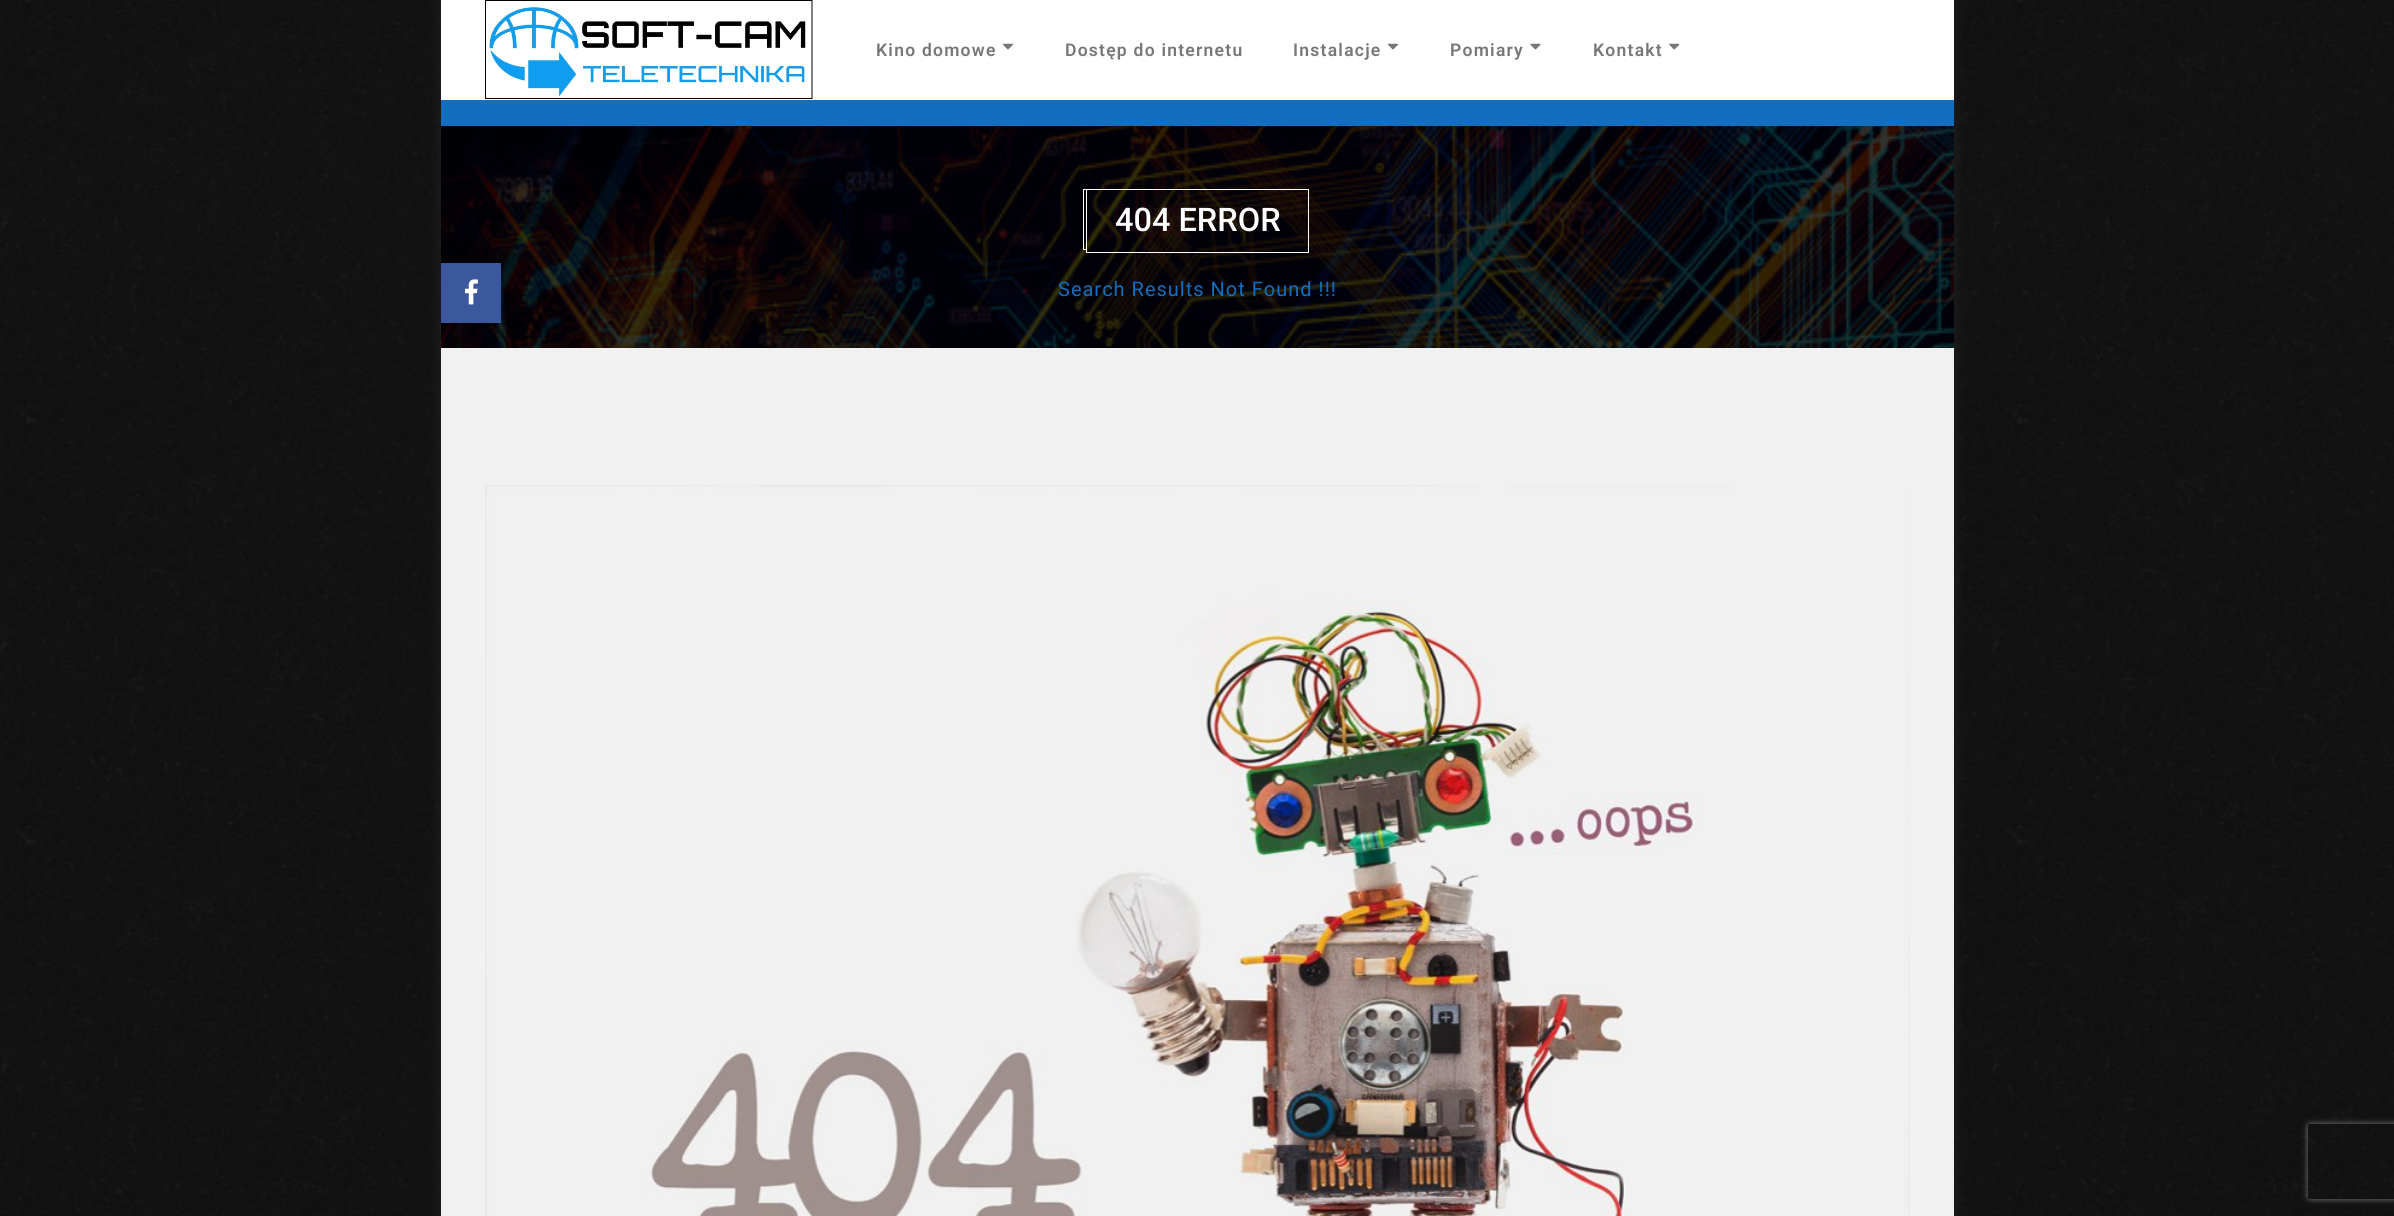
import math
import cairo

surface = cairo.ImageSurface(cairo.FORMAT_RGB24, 2394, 1216)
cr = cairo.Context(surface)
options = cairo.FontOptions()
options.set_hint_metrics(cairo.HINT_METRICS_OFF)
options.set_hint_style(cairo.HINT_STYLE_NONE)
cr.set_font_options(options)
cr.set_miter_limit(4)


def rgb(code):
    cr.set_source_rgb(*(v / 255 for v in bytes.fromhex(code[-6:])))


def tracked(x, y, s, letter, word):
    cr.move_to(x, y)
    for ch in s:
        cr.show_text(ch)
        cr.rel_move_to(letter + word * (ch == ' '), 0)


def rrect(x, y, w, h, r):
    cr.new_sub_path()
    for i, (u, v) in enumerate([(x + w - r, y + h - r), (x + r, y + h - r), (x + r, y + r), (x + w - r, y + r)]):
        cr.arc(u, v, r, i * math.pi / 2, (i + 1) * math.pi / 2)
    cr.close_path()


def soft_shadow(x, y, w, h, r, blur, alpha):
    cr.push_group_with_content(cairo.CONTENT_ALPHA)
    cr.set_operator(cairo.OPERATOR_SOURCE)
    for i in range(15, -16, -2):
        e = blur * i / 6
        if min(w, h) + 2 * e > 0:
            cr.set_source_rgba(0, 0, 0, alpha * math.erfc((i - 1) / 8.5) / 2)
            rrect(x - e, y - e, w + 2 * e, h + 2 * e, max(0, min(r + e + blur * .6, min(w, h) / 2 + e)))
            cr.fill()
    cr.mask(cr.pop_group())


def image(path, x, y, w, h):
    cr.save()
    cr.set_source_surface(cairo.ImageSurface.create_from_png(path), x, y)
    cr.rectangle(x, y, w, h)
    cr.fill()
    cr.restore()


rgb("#ffffff")
cr.paint()
image("img/1.png", 0, 0, 2394, 1216)
rgb("#303030")
soft_shadow(441, 0, 1513, 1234, 0, 6, 0.5)
rgb("#ffffff")
cr.rectangle(441, 0, 1513, 100)
cr.fill()
image("img/2.png", 485, 0, 328, 99)
image("img/3.png", 1002, 43, 11, 7)
image("img/3.png", 1387, 43, 11, 7)
image("img/4.png", 1530, 43, 11, 7)
image("img/5.png", 1669, 43, 11, 7)
rgb("#136ebf")
cr.rectangle(441, 100, 1513, 26)
cr.fill()
image("img/7.png", 441, 126, 1513, 222)
rgb("#3b579d")
cr.rectangle(441, 263, 60, 60)
cr.fill()
image("img/6.png", 465, 279, 13, 26)
cr.rectangle(1086.5, 189.5, 222, 63)
rgb("#ffffff")
cr.set_line_width(1)
cr.stroke()
for x, y, w, h, color in [
    (1083, 189, 4, 1, "#ffffff"),
    (1083, 249, 4, 1, "#ffffff"),
    (1083, 189, 1, 61, "#ffffff"),
    (441, 348, 1513, 868, "#f1f1f1"),
]:
    rgb(color)
    cr.rectangle(x, y, w, h)
    cr.fill()
image("img/8.png", 485, 485, 1425, 731)
cr.save()
cr.set_fill_rule(cairo.FILL_RULE_EVEN_ODD)
cr.new_path()
cr.move_to(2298, 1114)
cr.line_to(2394, 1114)
cr.line_to(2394, 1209)
cr.line_to(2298, 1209)
cr.close_path()
cr.move_to(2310.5, 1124)
cr.line_to(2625.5, 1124)
cr.curve_to(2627, 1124, 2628, 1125, 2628, 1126.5)
cr.line_to(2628, 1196.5)
cr.curve_to(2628, 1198, 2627, 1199, 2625.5, 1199)
cr.line_to(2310.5, 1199)
cr.curve_to(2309, 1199, 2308, 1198, 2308, 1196.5)
cr.line_to(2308, 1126.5)
cr.curve_to(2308, 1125, 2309, 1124, 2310.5, 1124)
cr.close_path()
cr.clip()
rgb("#808080")
soft_shadow(2308, 1124, 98, 75, 2.5, 3, 1)
cr.restore()
cr.select_font_face("Roboto SemiBold")
cr.set_font_size(17.5)
rgb("#777777")
for x, y, s in [
    (876, 56, "Kino domowe"),
    (1065, 56, "Dostęp do internetu"),
    (1293, 56, "Instalacje"),
    (1450, 56, "Pomiary"),
    (1593, 56, "Kontakt"),
]:
    tracked(x, y, s, 1.25, 0)
cr.select_font_face("Roboto Medium")
cr.set_font_size(32.5)
rgb("#ffffff")
cr.move_to(1115, 231)
cr.show_text("404 ERROR")
cr.select_font_face("Roboto")
cr.set_font_size(20)
rgb("#136ebf")
tracked(1058, 296, "Search Results Not Found !!!", 1, 0)
surface.write_to_png("page.png")
